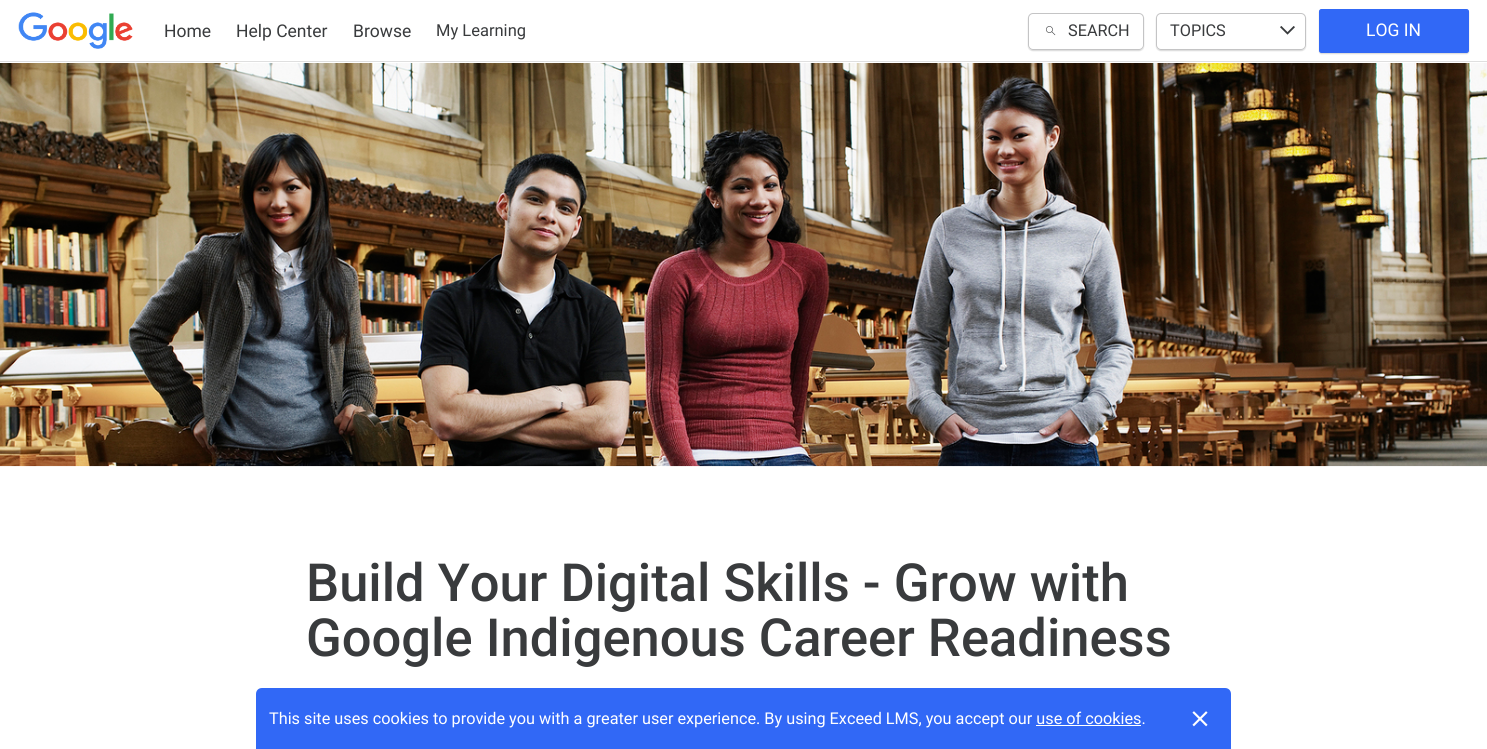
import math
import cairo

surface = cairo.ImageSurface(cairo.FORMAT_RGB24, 1487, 749)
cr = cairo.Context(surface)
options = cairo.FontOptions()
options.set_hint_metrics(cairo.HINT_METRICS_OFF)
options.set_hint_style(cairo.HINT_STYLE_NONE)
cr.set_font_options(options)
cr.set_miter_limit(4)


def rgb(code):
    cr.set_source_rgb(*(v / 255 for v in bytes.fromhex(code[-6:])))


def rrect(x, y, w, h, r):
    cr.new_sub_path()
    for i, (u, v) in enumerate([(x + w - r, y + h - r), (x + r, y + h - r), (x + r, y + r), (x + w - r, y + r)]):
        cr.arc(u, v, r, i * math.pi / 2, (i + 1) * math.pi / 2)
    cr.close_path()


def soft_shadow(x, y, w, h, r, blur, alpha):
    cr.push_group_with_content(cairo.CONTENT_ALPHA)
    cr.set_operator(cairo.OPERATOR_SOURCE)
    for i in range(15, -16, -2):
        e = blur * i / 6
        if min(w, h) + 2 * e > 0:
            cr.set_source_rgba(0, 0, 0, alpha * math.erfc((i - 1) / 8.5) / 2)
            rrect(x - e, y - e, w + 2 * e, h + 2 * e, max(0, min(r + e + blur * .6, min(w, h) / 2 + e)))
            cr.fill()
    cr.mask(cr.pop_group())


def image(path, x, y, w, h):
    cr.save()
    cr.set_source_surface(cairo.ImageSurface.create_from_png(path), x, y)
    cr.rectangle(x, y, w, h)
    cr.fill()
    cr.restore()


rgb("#ffffff")
cr.paint()
rgb("#dfdfdf")
cr.rectangle(0, 61, 1487, 1)
cr.fill()
image("img/1.png", 18, 12, 115, 37)
cr.save()
cr.set_fill_rule(cairo.FILL_RULE_EVEN_ODD)
cr.new_path()
cr.move_to(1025, 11)
cr.line_to(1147, 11)
cr.line_to(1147, 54)
cr.line_to(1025, 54)
cr.close_path()
cr.move_to(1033, 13)
cr.line_to(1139, 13)
cr.curve_to(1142, 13, 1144, 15, 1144, 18)
cr.line_to(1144, 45)
cr.curve_to(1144, 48, 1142, 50, 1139, 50)
cr.line_to(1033, 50)
cr.curve_to(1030, 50, 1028, 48, 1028, 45)
cr.line_to(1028, 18)
cr.curve_to(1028, 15, 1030, 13, 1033, 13)
cr.close_path()
cr.clip()
rgb("#000000")
soft_shadow(1028, 14, 116, 37, 5, 0.5, 0.15)
cr.restore()
rrect(1028.5, 13.5, 115, 36, 4.5)
cr.set_source_rgba(0.224, 0.231, 0.239, 0.3)
cr.set_line_width(1)
cr.stroke()
image("img/2.png", 1046, 26, 10, 10)
cr.save()
cr.set_fill_rule(cairo.FILL_RULE_EVEN_ODD)
cr.new_path()
cr.move_to(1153, 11)
cr.line_to(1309, 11)
cr.line_to(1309, 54)
cr.line_to(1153, 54)
cr.close_path()
cr.move_to(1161, 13)
cr.line_to(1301, 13)
cr.curve_to(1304, 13, 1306, 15, 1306, 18)
cr.line_to(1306, 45)
cr.curve_to(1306, 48, 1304, 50, 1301, 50)
cr.line_to(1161, 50)
cr.curve_to(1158, 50, 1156, 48, 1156, 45)
cr.line_to(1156, 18)
cr.curve_to(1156, 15, 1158, 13, 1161, 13)
cr.close_path()
cr.clip()
rgb("#000000")
soft_shadow(1156, 14, 150, 37, 5, 0.5, 0.15)
cr.restore()
rrect(1156.5, 13.5, 149, 36, 4.5)
cr.stroke()
image("img/3.png", 1280, 26, 15, 9)
rgb("#000000")
soft_shadow(1319, 10, 150, 44, 2.5, 0.5, 0.15)
rgb("#3168f6")
rrect(1319.5, 9.5, 149, 43, 2)
cr.fill_preserve()
cr.stroke()
image("img/4.png", 0, 63, 1487, 404)
cr.new_path()
cr.move_to(262, 688)
cr.line_to(1225, 688)
cr.curve_to(1228.5, 688, 1231, 690.5, 1231, 694)
cr.line_to(1231, 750)
cr.line_to(256, 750)
cr.line_to(256, 694)
cr.curve_to(256, 690.5, 258.5, 688, 262, 688)
cr.close_path()
cr.fill()
rgb("#ffffff")
cr.rectangle(1036, 725, 105, 1)
cr.fill()
image("img/5.png", 1192, 711, 16, 16)
cr.select_font_face("Roboto")
cr.set_font_size(17.5)
rgb("#393b3d")
for x, y, s in [
    (164, 37, "Home"),
    (236, 37, "Help Center"),
    (353, 37, "Browse"),
]:
    cr.move_to(x, y)
    cr.show_text(s)
cr.set_font_size(16.5)
cr.move_to(436, 36)
cr.show_text("My Learning")
cr.set_font_size(16.25)
cr.move_to(1068, 36)
cr.show_text("SEARCH")
cr.move_to(1170, 36)
cr.show_text("TOPICS")
cr.set_font_size(17.5)
rgb("#ffffff")
cr.move_to(1366, 36)
cr.show_text("LOG IN")
cr.select_font_face("Roboto Medium")
cr.set_font_size(52.5)
rgb("#393b3d")
cr.move_to(306, 601)
cr.show_text("Build Your Digital Skills - Grow with")
cr.move_to(306, 656)
cr.show_text("Google Indigenous Career Readiness")
cr.select_font_face("Roboto")
cr.set_font_size(16.25)
rgb("#ffffff")
cr.move_to(269, 724)
cr.show_text("This site uses cookies to provide you with a greater user experience. By using Exceed LMS, you accept our use of cookies.")
surface.write_to_png("page.png")
